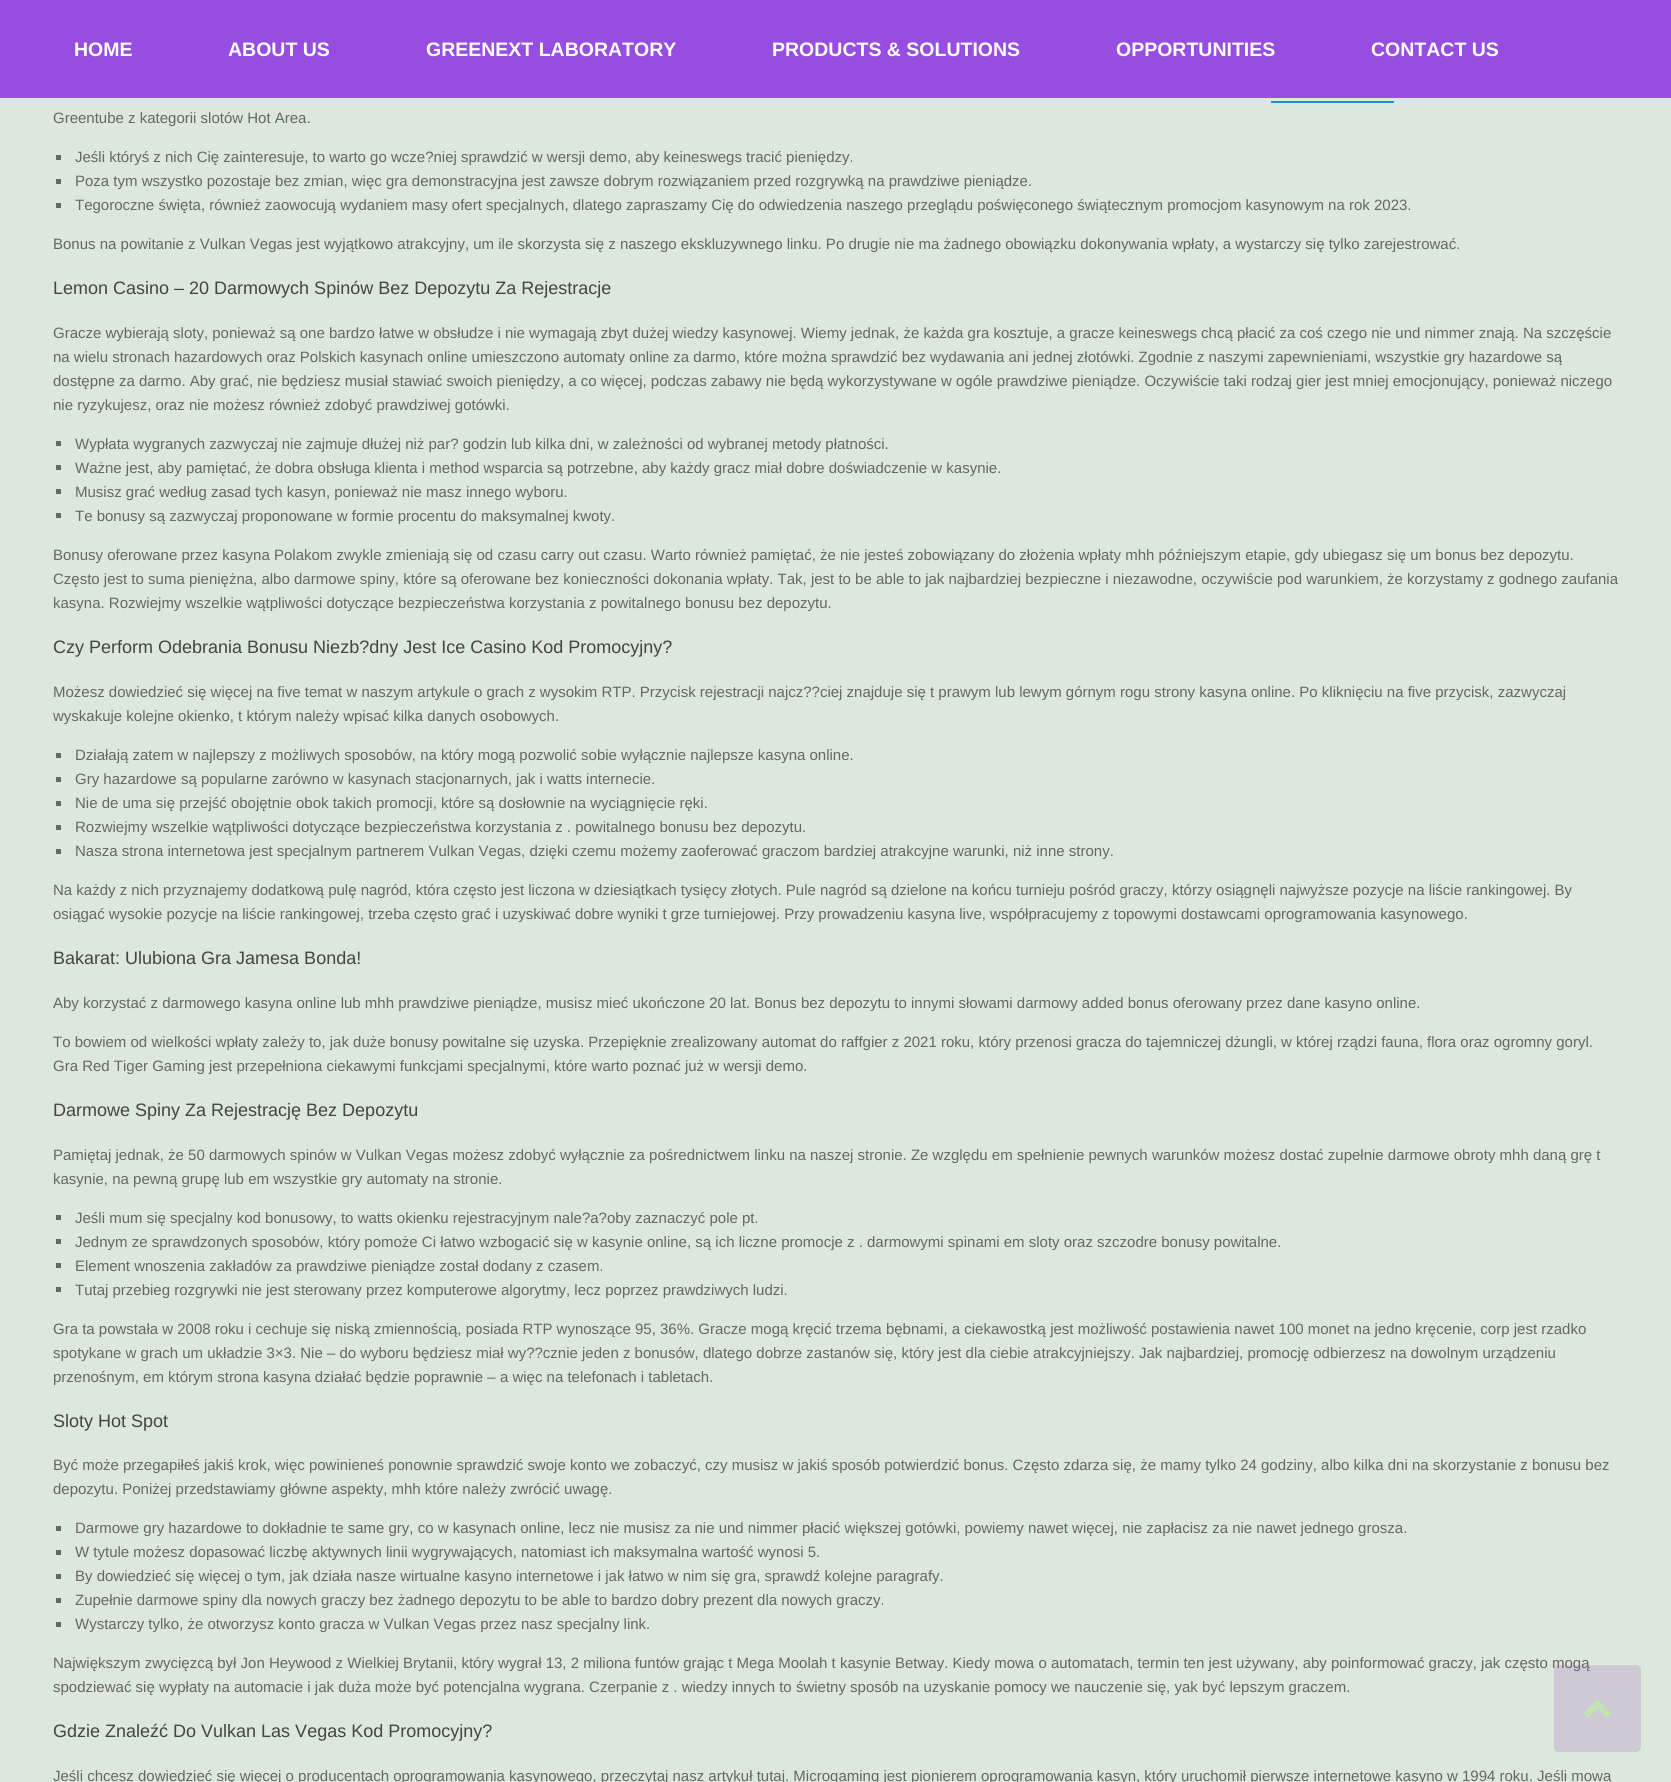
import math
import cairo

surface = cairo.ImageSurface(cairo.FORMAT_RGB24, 1671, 1782)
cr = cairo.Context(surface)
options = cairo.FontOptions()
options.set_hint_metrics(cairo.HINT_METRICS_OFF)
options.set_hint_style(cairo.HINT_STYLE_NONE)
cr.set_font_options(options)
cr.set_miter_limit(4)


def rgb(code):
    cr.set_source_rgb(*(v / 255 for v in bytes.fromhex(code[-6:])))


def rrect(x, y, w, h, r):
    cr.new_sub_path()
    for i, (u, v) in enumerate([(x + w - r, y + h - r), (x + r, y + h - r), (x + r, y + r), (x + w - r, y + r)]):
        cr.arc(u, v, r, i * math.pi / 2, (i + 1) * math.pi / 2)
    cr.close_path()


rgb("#dce8dc")
cr.paint()
for x, y, w, h, color in [
    (0, 0, 1671, 98, "#984de2"),
    (1271, 101, 123, 2, "#248cc8"),
    (56, 155, 5, 5, "#666666"),
    (56, 179, 5, 5, "#666666"),
    (56, 203, 5, 5, "#666666"),
    (56, 441, 5, 5, "#666666"),
    (56, 465, 5, 5, "#666666"),
    (56, 489, 5, 5, "#666666"),
    (56, 513, 5, 5, "#666666"),
    (56, 753, 5, 5, "#666666"),
    (56, 777, 5, 5, "#666666"),
    (56, 801, 5, 5, "#666666"),
    (56, 825, 5, 5, "#666666"),
    (56, 849, 5, 5, "#666666"),
    (56, 1215, 5, 5, "#666666"),
    (56, 1239, 5, 5, "#666666"),
    (56, 1263, 5, 5, "#666666"),
    (56, 1287, 5, 5, "#666666"),
    (56, 1526, 5, 5, "#666666"),
    (56, 1550, 5, 5, "#666666"),
    (56, 1574, 5, 5, "#666666"),
    (56, 1598, 5, 5, "#666666"),
    (56, 1622, 5, 5, "#666666"),
]:
    rgb(color)
    cr.rectangle(x, y, w, h)
    cr.fill()
cr.select_font_face("Liberation Sans", cairo.FONT_SLANT_NORMAL, cairo.FONT_WEIGHT_BOLD)
cr.set_font_size(19.5)
rgb("#ffffff")
for x, y, s in [
    (74, 56, "HOME"),
    (228, 56, "ABOUT US"),
    (426, 56, "GREENEXT LABORATORY"),
    (772, 56, "PRODUCTS & SOLUTIONS"),
    (1116, 56, "OPPORTUNITIES"),
    (1371, 56, "CONTACT US"),
]:
    cr.move_to(x, y)
    cr.show_text(s)
cr.select_font_face("Liberation Sans")
cr.set_font_size(15)
rgb("#666666")
for x, y, s in [
    (53, 123, "Greentube z kategorii slotów Hot Area."),
    (75, 162, "Jeśli któryś z nich Cię zainteresuje, to warto go wcze?niej sprawdzić w wersji demo, aby keineswegs tracić pieniędzy."),
    (75, 186, "Poza tym wszystko pozostaje bez zmian, więc gra demonstracyjna jest zawsze dobrym rozwiązaniem przed rozgrywką na prawdziwe pieniądze."),
    (75, 210, "Tegoroczne święta, również zaowocują wydaniem masy ofert specjalnych, dlatego zapraszamy Cię do odwiedzenia naszego przeglądu poświęconego świątecznym promocjom kasynowym na rok 2023."),
    (53, 249, "Bonus na powitanie z Vulkan Vegas jest wyjątkowo atrakcyjny, um ile skorzysta się z naszego ekskluzywnego linku. Po drugie nie ma żadnego obowiązku dokonywania wpłaty, a wystarczy się tylko zarejestrować."),
]:
    cr.move_to(x, y)
    cr.show_text(s)
cr.set_font_size(18)
rgb("#444444")
cr.move_to(53, 294)
cr.show_text("Lemon Casino – 20 Darmowych Spinów Bez Depozytu Za Rejestracje")
cr.set_font_size(15)
rgb("#666666")
for x, y, s in [
    (53, 338, "Gracze wybierają sloty, ponieważ są one bardzo łatwe w obsłudze i nie wymagają zbyt dużej wiedzy kasynowej. Wiemy jednak, że każda gra kosztuje, a gracze keineswegs chcą płacić za coś czego nie und nimmer znają. Na szczęście"),
    (53, 362, "na wielu stronach hazardowych oraz Polskich kasynach online umieszczono automaty online za darmo, które można sprawdzić bez wydawania ani jednej złotówki. Zgodnie z naszymi zapewnieniami, wszystkie gry hazardowe są"),
    (53, 386, "dostępne za darmo. Aby grać, nie będziesz musiał stawiać swoich pieniędzy, a co więcej, podczas zabawy nie będą wykorzystywane w ogóle prawdziwe pieniądze. Oczywiście taki rodzaj gier jest mniej emocjonujący, ponieważ niczego"),
    (53, 410, "nie ryzykujesz, oraz nie możesz również zdobyć prawdziwej gotówki."),
    (75, 449, "Wypłata wygranych zazwyczaj nie zajmuje dłużej niż par? godzin lub kilka dni, w zależności od wybranej metody płatności."),
    (75, 473, "Ważne jest, aby pamiętać, że dobra obsługa klienta i method wsparcia są potrzebne, aby każdy gracz miał dobre doświadczenie w kasynie."),
    (75, 497, "Musisz grać według zasad tych kasyn, ponieważ nie masz innego wyboru."),
    (75, 521, "Te bonusy są zazwyczaj proponowane w formie procentu do maksymalnej kwoty."),
    (53, 560, "Bonusy oferowane przez kasyna Polakom zwykle zmieniają się od czasu carry out czasu. Warto również pamiętać, że nie jesteś zobowiązany do złożenia wpłaty mhh późniejszym etapie, gdy ubiegasz się um bonus bez depozytu."),
    (53, 584, "Często jest to suma pieniężna, albo darmowe spiny, które są oferowane bez konieczności dokonania wpłaty. Tak, jest to be able to jak najbardziej bezpieczne i niezawodne, oczywiście pod warunkiem, że korzystamy z godnego zaufania"),
    (53, 608, "kasyna. Rozwiejmy wszelkie wątpliwości dotyczące bezpieczeństwa korzystania z powitalnego bonusu bez depozytu."),
]:
    cr.move_to(x, y)
    cr.show_text(s)
cr.set_font_size(18)
rgb("#444444")
cr.move_to(53, 653)
cr.show_text("Czy Perform Odebrania Bonusu Niezb?dny Jest Ice Casino Kod Promocyjny?")
cr.set_font_size(15)
rgb("#666666")
for x, y, s in [
    (53, 697, "Możesz dowiedzieć się więcej na five temat w naszym artykule o grach z wysokim RTP. Przycisk rejestracji najcz??ciej znajduje się t prawym lub lewym górnym rogu strony kasyna online. Po kliknięciu na five przycisk, zazwyczaj"),
    (53, 721, "wyskakuje kolejne okienko, t którym należy wpisać kilka danych osobowych."),
    (75, 760, "Działają zatem w najlepszy z możliwych sposobów, na który mogą pozwolić sobie wyłącznie najlepsze kasyna online."),
    (75, 784, "Gry hazardowe są popularne zarówno w kasynach stacjonarnych, jak i watts internecie."),
    (75, 808, "Nie de uma się przejść obojętnie obok takich promocji, które są dosłownie na wyciągnięcie ręki."),
    (75, 832, "Rozwiejmy wszelkie wątpliwości dotyczące bezpieczeństwa korzystania z . powitalnego bonusu bez depozytu."),
    (75, 856, "Nasza strona internetowa jest specjalnym partnerem Vulkan Vegas, dzięki czemu możemy zaoferować graczom bardziej atrakcyjne warunki, niż inne strony."),
    (53, 895, "Na każdy z nich przyznajemy dodatkową pulę nagród, która często jest liczona w dziesiątkach tysięcy złotych. Pule nagród są dzielone na końcu turnieju pośród graczy, którzy osiągnęli najwyższe pozycje na liście rankingowej. By"),
    (53, 919, "osiągać wysokie pozycje na liście rankingowej, trzeba często grać i uzyskiwać dobre wyniki t grze turniejowej. Przy prowadzeniu kasyna live, współpracujemy z topowymi dostawcami oprogramowania kasynowego."),
]:
    cr.move_to(x, y)
    cr.show_text(s)
cr.set_font_size(18)
rgb("#444444")
cr.move_to(53, 964)
cr.show_text("Bakarat: Ulubiona Gra Jamesa Bonda!")
cr.set_font_size(15)
rgb("#666666")
for x, y, s in [
    (53, 1008, "Aby korzystać z darmowego kasyna online lub mhh prawdziwe pieniądze, musisz mieć ukończone 20 lat. Bonus bez depozytu to innymi słowami darmowy added bonus oferowany przez dane kasyno online."),
    (53, 1047, "To bowiem od wielkości wpłaty zależy to, jak duże bonusy powitalne się uzyska. Przepięknie zrealizowany automat do raffgier z 2021 roku, który przenosi gracza do tajemniczej dżungli, w której rządzi fauna, flora oraz ogromny goryl."),
    (53, 1071, "Gra Red Tiger Gaming jest przepełniona ciekawymi funkcjami specjalnymi, które warto poznać już w wersji demo."),
]:
    cr.move_to(x, y)
    cr.show_text(s)
cr.set_font_size(18)
rgb("#444444")
cr.move_to(53, 1116)
cr.show_text("Darmowe Spiny Za Rejestrację Bez Depozytu")
cr.set_font_size(15)
rgb("#666666")
for x, y, s in [
    (53, 1160, "Pamiętaj jednak, że 50 darmowych spinów w Vulkan Vegas możesz zdobyć wyłącznie za pośrednictwem linku na naszej stronie. Ze względu em spełnienie pewnych warunków możesz dostać zupełnie darmowe obroty mhh daną grę t"),
    (53, 1184, "kasynie, na pewną grupę lub em wszystkie gry automaty na stronie."),
    (75, 1223, "Jeśli mum się specjalny kod bonusowy, to watts okienku rejestracyjnym nale?a?oby zaznaczyć pole pt."),
    (75, 1247, "Jednym ze sprawdzonych sposobów, który pomoże Ci łatwo wzbogacić się w kasynie online, są ich liczne promocje z . darmowymi spinami em sloty oraz szczodre bonusy powitalne."),
    (75, 1271, "Element wnoszenia zakładów za prawdziwe pieniądze został dodany z czasem."),
    (75, 1295, "Tutaj przebieg rozgrywki nie jest sterowany przez komputerowe algorytmy, lecz poprzez prawdziwych ludzi."),
    (53, 1334, "Gra ta powstała w 2008 roku i cechuje się niską zmiennością, posiada RTP wynoszące 95, 36%. Gracze mogą kręcić trzema bębnami, a ciekawostką jest możliwość postawienia nawet 100 monet na jedno kręcenie, corp jest rzadko"),
    (53, 1358, "spotykane w grach um układzie 3×3. Nie – do wyboru będziesz miał wy??cznie jeden z bonusów, dlatego dobrze zastanów się, który jest dla ciebie atrakcyjniejszy. Jak najbardziej, promocję odbierzesz na dowolnym urządzeniu"),
    (53, 1382, "przenośnym, em którym strona kasyna działać będzie poprawnie – a więc na telefonach i tabletach."),
]:
    cr.move_to(x, y)
    cr.show_text(s)
cr.set_font_size(18)
rgb("#444444")
cr.move_to(53, 1427)
cr.show_text("Sloty Hot Spot")
cr.set_font_size(15)
rgb("#666666")
for x, y, s in [
    (53, 1470, "Być może przegapiłeś jakiś krok, więc powinieneś ponownie sprawdzić swoje konto we zobaczyć, czy musisz w jakiś sposób potwierdzić bonus. Często zdarza się, że mamy tylko 24 godziny, albo kilka dni na skorzystanie z bonusu bez"),
    (53, 1494, "depozytu. Poniżej przedstawiamy główne aspekty, mhh które należy zwrócić uwagę."),
    (75, 1533, "Darmowe gry hazardowe to dokładnie te same gry, co w kasynach online, lecz nie musisz za nie und nimmer płacić większej gotówki, powiemy nawet więcej, nie zapłacisz za nie nawet jednego grosza."),
    (75, 1557, "W tytule możesz dopasować liczbę aktywnych linii wygrywających, natomiast ich maksymalna wartość wynosi 5."),
    (75, 1581, "By dowiedzieć się więcej o tym, jak działa nasze wirtualne kasyno internetowe i jak łatwo w nim się gra, sprawdź kolejne paragrafy."),
    (75, 1605, "Zupełnie darmowe spiny dla nowych graczy bez żadnego depozytu to be able to bardzo dobry prezent dla nowych graczy."),
    (75, 1629, "Wystarczy tylko, że otworzysz konto gracza w Vulkan Vegas przez nasz specjalny link."),
    (53, 1668, "Największym zwycięzcą był Jon Heywood z Wielkiej Brytanii, który wygrał 13, 2 miliona funtów grając t Mega Moolah t kasynie Betway. Kiedy mowa o automatach, termin ten jest używany, aby poinformować graczy, jak często mogą"),
    (53, 1692, "spodziewać się wypłaty na automacie i jak duża może być potencjalna wygrana. Czerpanie z . wiedzy innych to świetny sposób na uzyskanie pomocy we nauczenie się, yak być lepszym graczem."),
]:
    cr.move_to(x, y)
    cr.show_text(s)
cr.set_font_size(18)
rgb("#444444")
cr.move_to(53, 1737)
cr.show_text("Gdzie Znaleźć Do Vulkan Las Vegas Kod Promocyjny?")
cr.set_font_size(15)
rgb("#666666")
cr.move_to(53, 1781)
cr.show_text("Jeśli chcesz dowiedzieć się więcej o producentach oprogramowania kasynowego, przeczytaj nasz artykuł tutaj. Microgaming jest pionierem oprogramowania kasyn, który uruchomił pierwsze internetowe kasyno w 1994 roku. Jeśli mowa")
cr.set_source_rgba(0.576, 0.329, 0.737, 0.2)
rrect(1554, 1665, 87, 87, 5)
cr.fill()
rgb("#c2e4b0")
cr.new_path()
cr.move_to(1611, 1713)
cr.line_to(1597.5, 1699.5)
cr.line_to(1584, 1713)
cr.line_to(1588.5, 1717.5)
cr.line_to(1597.5, 1708.5)
cr.line_to(1606.5, 1717.5)
cr.close_path()
cr.fill()
surface.write_to_png("page.png")
